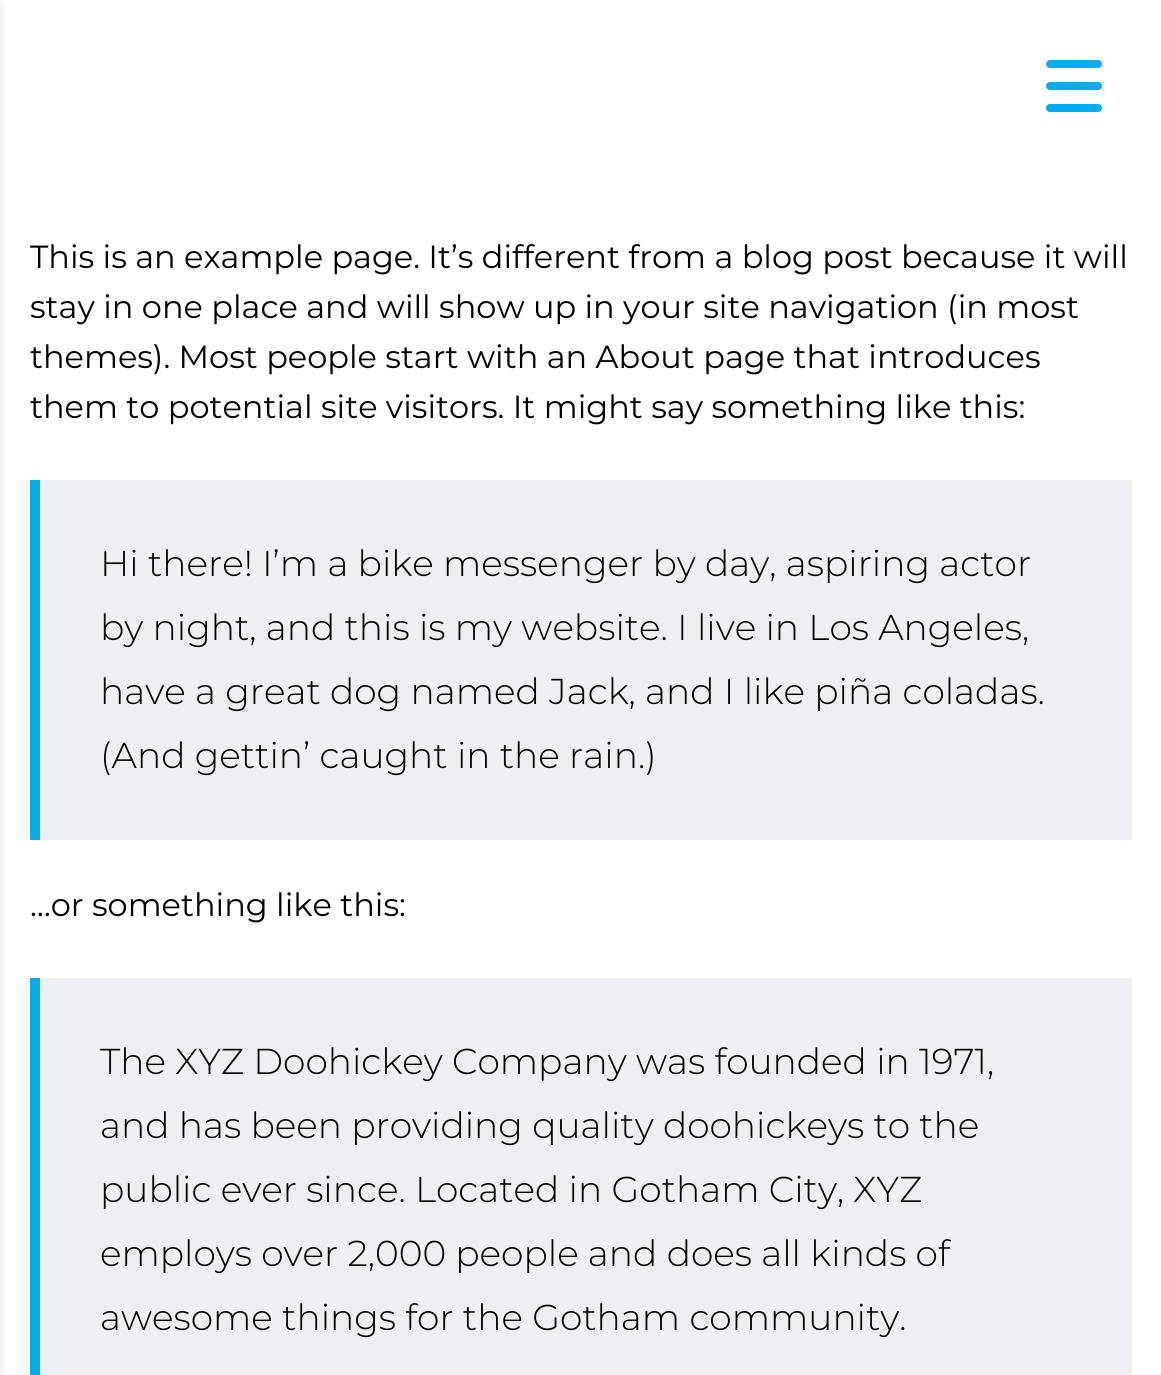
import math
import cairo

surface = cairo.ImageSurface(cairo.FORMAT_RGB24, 1161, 1375)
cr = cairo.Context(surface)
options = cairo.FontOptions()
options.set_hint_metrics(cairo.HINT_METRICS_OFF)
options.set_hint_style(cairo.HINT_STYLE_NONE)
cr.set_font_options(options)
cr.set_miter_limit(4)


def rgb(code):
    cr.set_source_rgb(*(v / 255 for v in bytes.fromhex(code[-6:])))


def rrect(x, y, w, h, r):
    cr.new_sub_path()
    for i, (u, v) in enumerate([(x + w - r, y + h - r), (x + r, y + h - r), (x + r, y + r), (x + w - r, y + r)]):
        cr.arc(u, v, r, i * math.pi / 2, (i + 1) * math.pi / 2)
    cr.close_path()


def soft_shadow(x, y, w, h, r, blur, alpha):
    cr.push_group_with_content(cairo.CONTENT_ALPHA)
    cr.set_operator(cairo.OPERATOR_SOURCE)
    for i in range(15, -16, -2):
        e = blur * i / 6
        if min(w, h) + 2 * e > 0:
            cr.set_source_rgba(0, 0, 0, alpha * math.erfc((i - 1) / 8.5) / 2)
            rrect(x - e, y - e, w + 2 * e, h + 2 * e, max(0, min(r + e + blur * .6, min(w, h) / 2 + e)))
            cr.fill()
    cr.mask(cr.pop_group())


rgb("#ffffff")
cr.paint()
rgb("#000000")
soft_shadow(-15, 6, 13, 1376, 0, 5, 0.2)
rgb("#00aeef")
rrect(1046, 60, 56, 8, 4)
cr.fill()
rrect(1046, 82, 56, 8, 4)
cr.fill()
rrect(1046, 104, 56, 8, 4)
cr.fill()
for x, y, w, h, color in [
    (40, 480, 1092, 360, "#eeeff2"),
    (30, 480, 10, 360, "#00aeef"),
    (40, 978, 1092, 397, "#eeeff2"),
    (30, 978, 10, 397, "#00aeef"),
]:
    rgb(color)
    cr.rectangle(x, y, w, h)
    cr.fill()
cr.select_font_face("Montserrat")
cr.set_font_size(32)
rgb("#010000")
for x, y, s in [
    (30, 268, "This is an example page. It’s different from a blog post because it will"),
    (30, 318, "stay in one place and will show up in your site navigation (in most"),
    (30, 368, "themes). Most people start with an About page that introduces"),
    (30, 418, "them to potential site visitors. It might say something like this:"),
]:
    cr.move_to(x, y)
    cr.show_text(s)
cr.select_font_face("Montserrat Light")
cr.set_font_size(36)
for x, y, s in [
    (100, 576, "Hi there! I’m a bike messenger by day, aspiring actor"),
    (100, 640, "by night, and this is my website. I live in Los Angeles,"),
    (100, 704, "have a great dog named Jack, and I like piña coladas."),
    (100, 768, "(And gettin’ caught in the rain.)"),
]:
    cr.move_to(x, y)
    cr.show_text(s)
cr.select_font_face("Montserrat")
cr.set_font_size(32)
cr.move_to(30, 916)
cr.show_text("…or something like this:")
cr.select_font_face("Montserrat Light")
cr.set_font_size(36)
for x, y, s in [
    (100, 1074, "The XYZ Doohickey Company was founded in 1971,"),
    (100, 1138, "and has been providing quality doohickeys to the"),
    (100, 1202, "public ever since. Located in Gotham City, XYZ"),
    (100, 1266, "employs over 2,000 people and does all kinds of"),
    (100, 1330, "awesome things for the Gotham community."),
]:
    cr.move_to(x, y)
    cr.show_text(s)
surface.write_to_png("page.png")
